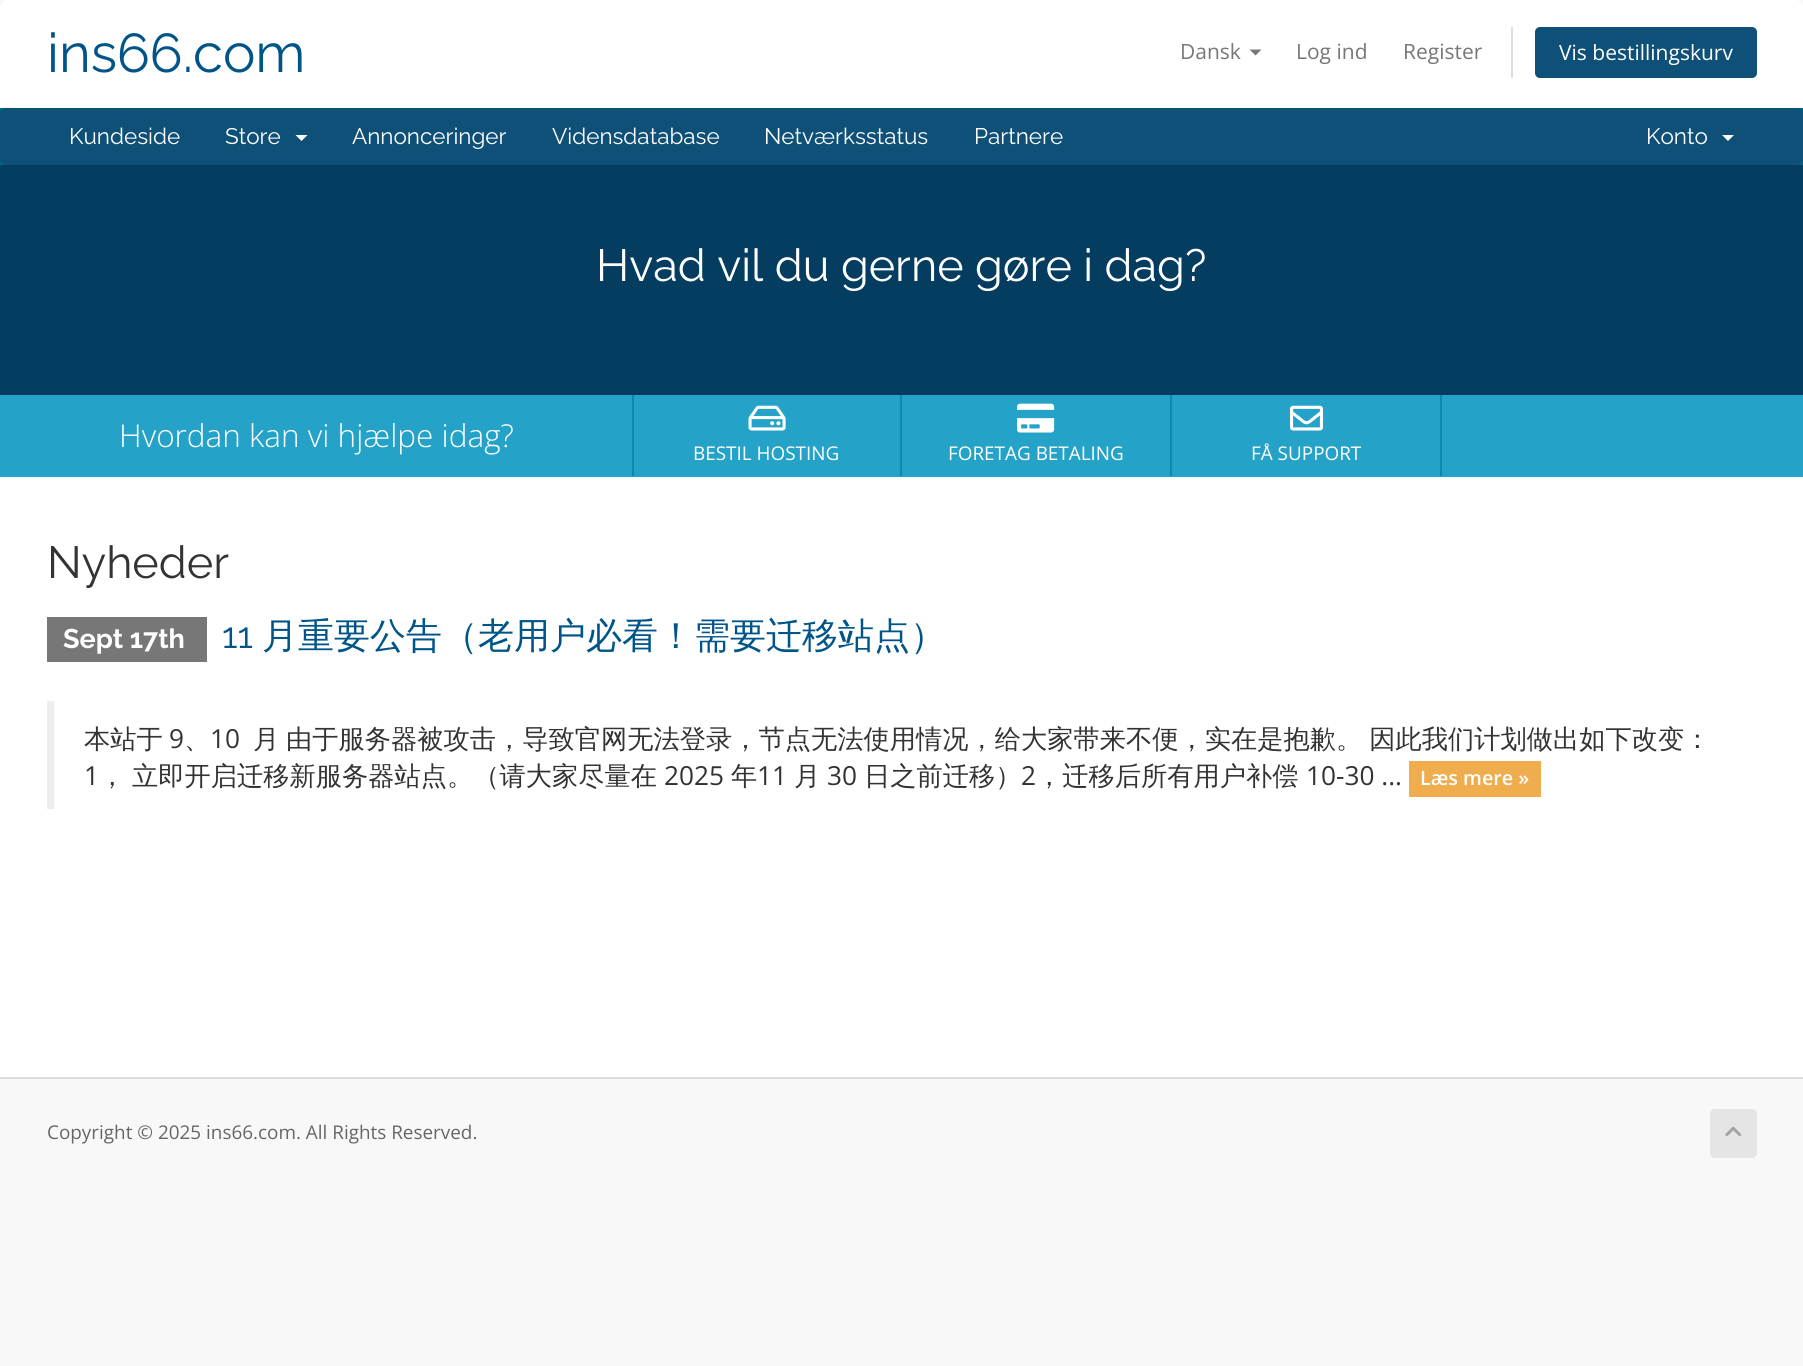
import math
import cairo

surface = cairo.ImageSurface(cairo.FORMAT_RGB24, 1803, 1366)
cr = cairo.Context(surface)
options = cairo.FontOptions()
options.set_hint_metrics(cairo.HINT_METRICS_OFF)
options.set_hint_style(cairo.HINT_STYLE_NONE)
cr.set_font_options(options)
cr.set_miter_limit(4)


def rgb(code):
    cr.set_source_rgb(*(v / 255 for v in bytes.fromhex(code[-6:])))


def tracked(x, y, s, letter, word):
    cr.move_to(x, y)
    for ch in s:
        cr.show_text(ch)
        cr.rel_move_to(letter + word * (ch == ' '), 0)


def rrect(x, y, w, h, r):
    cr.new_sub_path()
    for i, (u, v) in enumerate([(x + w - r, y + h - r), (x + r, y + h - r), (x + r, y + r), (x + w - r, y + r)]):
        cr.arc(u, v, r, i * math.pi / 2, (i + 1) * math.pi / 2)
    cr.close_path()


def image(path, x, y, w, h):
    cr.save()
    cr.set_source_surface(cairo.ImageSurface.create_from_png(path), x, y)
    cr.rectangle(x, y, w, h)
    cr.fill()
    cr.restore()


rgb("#f8f8f8")
cr.paint()
rgb("#ffffff")
cr.new_path()
cr.move_to(8, 0)
cr.line_to(1795, 0)
cr.curve_to(1799.5, 0, 1803, 3.5, 1803, 8)
cr.line_to(1803, 108)
cr.line_to(0, 108)
cr.line_to(0, 8)
cr.curve_to(0, 3.5, 3.5, 0, 8, 0)
cr.close_path()
cr.fill()
rgb("#777777")
cr.new_path()
cr.move_to(1249.5, 49.5)
cr.line_to(1261.5, 49.5)
cr.line_to(1255.5, 55.5)
cr.close_path()
cr.fill()
rgb("#dddddd")
cr.rectangle(1511, 27, 2, 51)
cr.fill()
rgb("#0e5077")
rrect(1535, 27, 222, 51, 5)
cr.fill()
rgb("#006687")
cr.rectangle(0, 108, 1803, 57)
cr.fill()
rgb("#0e5077")
rrect(0, 108, 1803, 57, 6)
cr.fill()
rgb("#ffffff")
cr.new_path()
cr.move_to(295.5, 135)
cr.line_to(307.5, 135)
cr.line_to(301.5, 141)
cr.close_path()
cr.fill()
cr.new_path()
cr.move_to(1722, 135)
cr.line_to(1734, 135)
cr.line_to(1728, 141)
cr.close_path()
cr.fill()
for x, y, w, h, color in [
    (0, 165, 1803, 230, "#043d5f"),
    (0, 395, 1803, 82, "#25a2c7"),
    (900, 395, 2, 81, "#0e88b0"),
    (632, 395, 2, 81, "#0e88b0"),
]:
    rgb(color)
    cr.rectangle(x, y, w, h)
    cr.fill()
image("img/1.png", 748, 405, 38, 26)
cr.rectangle(1170, 395, 2, 81)
cr.fill()
image("img/2.png", 1017, 403, 38, 30)
cr.rectangle(1440, 395, 2, 81)
cr.fill()
image("img/3.png", 1290, 405, 33, 26)
for x, y, w, h, color in [
    (0, 477, 1803, 600, "#ffffff"),
    (47, 617, 160, 45, "#777777"),
    (47, 701, 7, 108, "#eeeeee"),
    (1409, 761, 132, 36, "#f0ad4e"),
    (0, 1077, 1803, 2, "#dddddd"),
]:
    rgb(color)
    cr.rectangle(x, y, w, h)
    cr.fill()
rgb("#e5e5e5")
rrect(1710, 1109, 47, 49, 5)
cr.fill()
image("img/4.png", 1725, 1126, 17, 11)
cr.select_font_face("Raleway")
cr.set_font_size(54.5)
rgb("#005588")
cr.move_to(47, 72)
cr.show_text("ins66.com")
cr.select_font_face("Open Sans")
cr.set_font_size(21)
rgb("#777777")
for x, y, s in [
    (1180, 59, "Dansk"),
    (1296, 59, "Log ind"),
    (1403, 59, "Register"),
]:
    cr.move_to(x, y)
    cr.show_text(s)
rgb("#ffffff")
cr.move_to(1559, 60)
cr.show_text("Vis bestillingskurv")
cr.select_font_face("Raleway")
cr.set_font_size(22.5)
for x, y, s in [
    (69, 144, "Kundeside"),
    (225, 144, "Store"),
    (352, 144, "Annonceringer"),
    (552, 144, "Vidensdatabase"),
    (764, 144, "Netværksstatus"),
    (974, 144, "Partnere"),
    (1646, 144, "Konto"),
]:
    cr.move_to(x, y)
    cr.show_text(s)
cr.set_font_size(45)
cr.move_to(596, 281)
cr.show_text("Hvad vil du gerne gøre i dag?")
cr.select_font_face("Open Sans Light")
cr.set_font_size(31.5)
cr.move_to(119, 447)
cr.show_text("Hvordan kan vi hjælpe idag?")
cr.select_font_face("Open Sans")
cr.set_font_size(18.9)
for x, y, s in [
    (693, 460, "BESTIL HOSTING"),
    (948, 460, "FORETAG BETALING"),
    (1251, 460, "FÅ SUPPORT"),
]:
    cr.move_to(x, y)
    cr.show_text(s)
cr.select_font_face("Raleway")
cr.set_font_size(45)
rgb("#333333")
cr.move_to(47, 578)
cr.show_text("Nyheder")
cr.select_font_face("Raleway", cairo.FONT_SLANT_NORMAL, cairo.FONT_WEIGHT_BOLD)
cr.set_font_size(27)
rgb("#ffffff")
cr.move_to(63, 648)
cr.show_text("Sept 17th")
cr.select_font_face("Raleway")
cr.set_font_size(36)
rgb("#005588")
cr.move_to(222, 648)
cr.show_text("11")
cr.select_font_face("WenQuanYi Zen Hei Medium")
cr.move_to(262, 648)
cr.show_text("月重要公告（老用户必看！需要迁移站点）")
cr.set_font_size(26.25)
rgb("#333333")
cr.move_to(84, 748)
cr.show_text("本站于")
cr.select_font_face("Open Sans")
cr.move_to(169, 748)
cr.show_text("9")
cr.select_font_face("WenQuanYi Zen Hei Medium")
cr.move_to(184, 748)
cr.show_text("、")
cr.select_font_face("Open Sans")
cr.move_to(210, 748)
cr.show_text("10")
cr.select_font_face("WenQuanYi Zen Hei Medium")
tracked(253, 748, "月 由于服务器被攻击，导致官网无法登录，节点无法使用情况，给大家带来不便，实在是抱歉。 因此我们计划做出如下改变：", 0, -1)
cr.select_font_face("Open Sans")
cr.move_to(84, 785)
cr.show_text("1")
cr.select_font_face("WenQuanYi Zen Hei Medium")
cr.move_to(99, 785)
cr.show_text("，")
cr.move_to(132, 785)
cr.show_text("立即开启迁移新服务器站点。（请大家尽量在")
cr.select_font_face("Open Sans")
cr.move_to(664, 785)
cr.show_text("2025")
cr.select_font_face("WenQuanYi Zen Hei Medium")
cr.move_to(731, 785)
cr.show_text("年")
cr.select_font_face("Open Sans")
cr.move_to(757, 785)
cr.show_text("11")
cr.select_font_face("WenQuanYi Zen Hei Medium")
cr.move_to(794, 785)
cr.show_text("月")
cr.select_font_face("Open Sans")
cr.move_to(827, 785)
cr.show_text("30")
cr.select_font_face("WenQuanYi Zen Hei Medium")
cr.move_to(864, 785)
cr.show_text("日之前迁移）")
cr.select_font_face("Open Sans")
cr.move_to(1021, 785)
cr.show_text("2")
cr.select_font_face("WenQuanYi Zen Hei Medium")
cr.move_to(1036, 785)
cr.show_text("，迁移后所有用户补偿")
cr.select_font_face("Open Sans")
cr.move_to(1306, 785)
cr.show_text("10-30 ...")
cr.select_font_face("Open Sans SemiBold")
cr.set_font_size(19.75)
rgb("#ffffff")
cr.move_to(1420, 785)
cr.show_text("Læs mere »")
cr.select_font_face("Open Sans")
cr.set_font_size(18.9)
rgb("#666666")
cr.move_to(47, 1139)
cr.show_text("Copyright © 2025 ins66.com. All Rights Reserved.")
surface.write_to_png("page.png")
